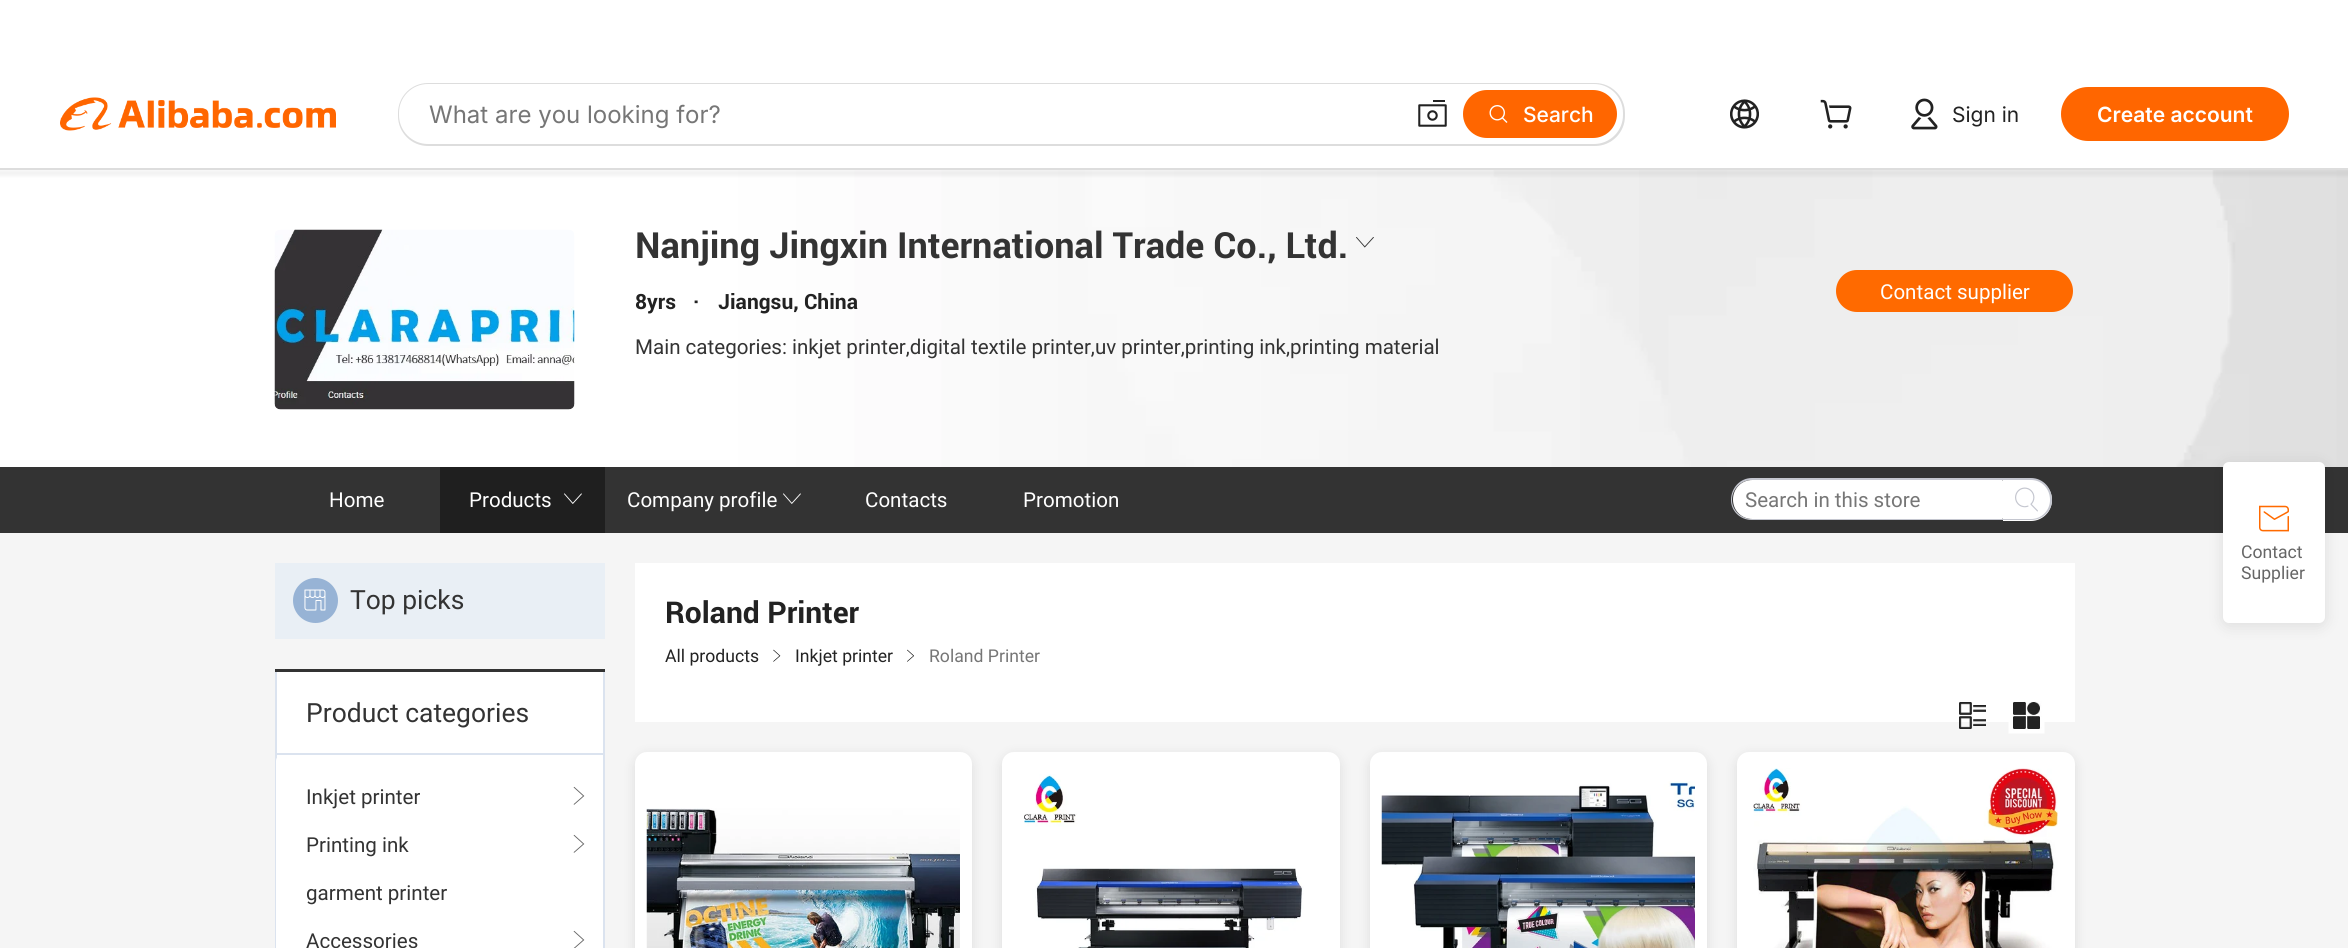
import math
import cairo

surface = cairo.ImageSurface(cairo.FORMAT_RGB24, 2348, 948)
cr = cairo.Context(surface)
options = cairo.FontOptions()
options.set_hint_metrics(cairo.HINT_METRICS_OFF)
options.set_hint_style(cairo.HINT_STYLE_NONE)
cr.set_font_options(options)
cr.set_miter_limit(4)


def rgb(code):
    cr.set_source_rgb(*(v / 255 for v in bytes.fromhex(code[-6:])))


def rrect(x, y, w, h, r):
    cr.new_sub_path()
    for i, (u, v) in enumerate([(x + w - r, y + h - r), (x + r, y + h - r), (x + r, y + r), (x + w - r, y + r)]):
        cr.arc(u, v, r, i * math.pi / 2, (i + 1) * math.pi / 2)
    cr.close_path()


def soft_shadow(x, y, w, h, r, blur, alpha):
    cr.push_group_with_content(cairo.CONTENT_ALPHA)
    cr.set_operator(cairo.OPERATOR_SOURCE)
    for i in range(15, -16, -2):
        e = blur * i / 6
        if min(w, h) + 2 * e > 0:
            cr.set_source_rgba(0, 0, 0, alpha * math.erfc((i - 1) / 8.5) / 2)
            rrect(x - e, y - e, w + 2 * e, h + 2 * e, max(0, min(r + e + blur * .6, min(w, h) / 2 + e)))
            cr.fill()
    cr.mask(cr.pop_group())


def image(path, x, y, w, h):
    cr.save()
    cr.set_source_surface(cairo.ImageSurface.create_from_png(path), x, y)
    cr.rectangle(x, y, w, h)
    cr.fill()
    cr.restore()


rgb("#ffffff")
cr.paint()
image("img/7.png", 0, 170, 2348, 297)
rgb("#000000")
soft_shadow(-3, 170, 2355, 6, 0, 1.5, 0.05)
rgb("#dddddd")
cr.rectangle(0, 168, 2348, 2)
cr.fill()
image("img/1.png", 60, 97, 276, 34)
rrect(398, 83, 1227, 63, 30)
cr.fill()
rgb("#ffffff")
rrect(399, 84, 1224, 60, 29)
cr.fill()
image("img/2.png", 1418, 100, 29, 27)
rgb("#ff6600")
rrect(1463, 90, 154, 48, 24)
cr.fill()
image("img/3.png", 1489, 105, 19, 18)
image("img/4.png", 1730, 99, 29, 30)
image("img/5.png", 1820, 99, 32, 30)
image("img/6.png", 1911, 98, 27, 32)
rrect(2061, 87, 228, 54, 27)
cr.fill()
image("img/8.png", 274, 229, 301, 181)
image("img/9.png", 1356, 237, 18, 11)
rgb("#ff6a00")
rrect(1836, 270, 237, 42, 21)
cr.fill()
rgb("#333333")
cr.rectangle(0, 467, 2348, 66)
cr.fill()
rgb("#1f1f1f")
cr.rectangle(440, 467, 165, 66)
cr.fill()
image("img/10.png", 564, 493, 18, 11)
image("img/11.png", 783, 493, 18, 11)
rgb("#c4c6cf")
cr.set_fill_rule(cairo.FILL_RULE_EVEN_ODD)
cr.new_path()
cr.move_to(1752, 478)
cr.line_to(2002, 478)
cr.line_to(2002, 520)
cr.line_to(1752, 520)
cr.curve_to(1740, 520, 1731, 511, 1731, 500)
cr.curve_to(1731, 488, 1740, 478, 1752, 478)
cr.close_path()
cr.move_to(1752, 480)
cr.line_to(2002, 480)
cr.line_to(2002, 519)
cr.line_to(1752, 519)
cr.curve_to(1741, 519, 1732, 510, 1732, 500)
cr.curve_to(1732, 489, 1741, 480, 1752, 480)
cr.close_path()
cr.fill()
rgb("#ffffff")
cr.new_path()
cr.move_to(1752.5, 480)
cr.line_to(2002, 480)
cr.curve_to(2002.5, 480, 2003, 480.5, 2003, 481)
cr.line_to(2003, 518)
cr.curve_to(2003, 518.5, 2002.5, 519, 2002, 519)
cr.line_to(1752.5, 519)
cr.curve_to(1741.5, 519, 1733, 510.5, 1733, 499.5)
cr.curve_to(1733, 488.5, 1741.5, 480, 1752.5, 480)
cr.close_path()
cr.fill()
cr.new_path()
cr.move_to(2003, 479)
cr.line_to(2031, 479)
cr.curve_to(2042.5, 479, 2052, 488.5, 2052, 500)
cr.curve_to(2052, 511.5, 2042.5, 521, 2031, 521)
cr.line_to(2003, 521)
cr.close_path()
cr.fill()
rgb("#c4c6cf")
cr.new_path()
cr.move_to(2002, 478)
cr.line_to(2031, 478)
cr.curve_to(2043, 478, 2052, 488, 2052, 500)
cr.curve_to(2052, 511, 2043, 520, 2031, 520)
cr.line_to(2002, 520)
cr.close_path()
cr.move_to(2002, 480)
cr.line_to(2031, 480)
cr.curve_to(2042, 480, 2050, 489, 2050, 500)
cr.curve_to(2050, 510, 2042, 519, 2031, 519)
cr.line_to(2002, 519)
cr.close_path()
cr.fill()
image("img/12.png", 2015, 487, 23, 25)
rgb("#f5f5f5")
cr.rectangle(0, 533, 2348, 415)
cr.fill()
rgb("#e9eff5")
cr.rectangle(275, 563, 330, 76)
cr.fill()
rgb("#97b3d5")
cr.arc(315.5, 600.5, 22.5, 0, 2 * math.pi)
cr.fill()
image("img/13.png", 304, 589, 22, 22)
for x, y, w, h, color in [
    (277, 672, 326, 89, "#ffffff"),
    (275, 669, 330, 3, "#333333"),
    (603, 672, 2, 276, "#dbe3ef"),
    (275, 672, 2, 276, "#dbe3ef"),
    (276, 753, 327, 2, "#dbe3ef"),
]:
    rgb(color)
    cr.rectangle(x, y, w, h)
    cr.fill()
rgb("#ffffff")
rrect(276, 755, 327, 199, 6)
cr.fill()
image("img/14.png", 573, 786, 12, 19)
image("img/14.png", 573, 834, 12, 19)
image("img/15.png", 573, 930, 12, 18)
cr.rectangle(635, 563, 1440, 159)
cr.fill()
image("img/16.png", 773, 649, 8, 13)
image("img/17.png", 907, 649, 7, 13)
image("img/18.png", 1959, 702, 27, 27)
image("img/19.png", 2008, 701, 37, 33)
rgb("#000000")
soft_shadow(635, 755, 337, 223, 12, 6, 0.1)
rgb("#ffffff")
rrect(635, 752, 337, 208, 12)
cr.fill()
image("img/20.png", 646, 808, 314, 140)
rgb("#000000")
soft_shadow(1002, 755, 338, 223, 12, 6, 0.1)
rgb("#ffffff")
rrect(1002, 752, 338, 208, 12)
cr.fill()
image("img/21.png", 1024, 774, 280, 174)
rgb("#000000")
soft_shadow(1370, 755, 337, 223, 12, 6, 0.1)
rgb("#ffffff")
rrect(1370, 752, 337, 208, 12)
cr.fill()
image("img/22.png", 1381, 781, 314, 167)
rgb("#000000")
soft_shadow(1737, 755, 338, 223, 12, 6, 0.1)
rgb("#ffffff")
rrect(1737, 752, 338, 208, 12)
cr.fill()
image("img/23.png", 1753, 768, 305, 180)
rgb("#000000")
soft_shadow(2223, 465, 102, 161, 6, 7.5, 0.1)
rgb("#ffffff")
rrect(2223, 462, 102, 161, 6)
cr.fill()
image("img/24.png", 2259, 505, 30, 27)
cr.select_font_face("Inter")
cr.set_font_size(24)
rgb("#767676")
cr.move_to(429, 123)
cr.show_text("What are you looking for?")
cr.select_font_face("Inter Medium")
cr.set_font_size(21)
rgb("#ffffff")
cr.move_to(1523, 122)
cr.show_text("Search")
cr.select_font_face("Inter")
rgb("#222222")
cr.move_to(1952, 122)
cr.show_text("Sign in")
cr.select_font_face("Inter SemiBold")
rgb("#ffffff")
cr.move_to(2097, 122)
cr.show_text("Create account")
cr.select_font_face("Roboto", cairo.FONT_SLANT_NORMAL, cairo.FONT_WEIGHT_BOLD)
cr.set_font_size(36)
rgb("#333333")
cr.move_to(635, 258)
cr.show_text("Nanjing Jingxin International Trade Co., Ltd.")
cr.set_font_size(21)
rgb("#222222")
for x, y, s in [
    (635, 309, "8yrs"),
    (693, 309, "·"),
    (718, 309, "Jiangsu, China"),
]:
    cr.move_to(x, y)
    cr.show_text(s)
cr.select_font_face("Roboto")
rgb("#333333")
cr.move_to(635, 354)
cr.show_text("Main categories: inkjet printer,digital textile printer,uv printer,printing ink,printing material")
rgb("#ffffff")
for x, y, s in [
    (1880, 299, "Contact supplier"),
    (329, 507, "Home"),
    (469, 507, "Products"),
    (627, 507, "Company profile"),
    (865, 507, "Contacts"),
    (1023, 507, "Promotion"),
]:
    cr.move_to(x, y)
    cr.show_text(s)
rgb("#767676")
cr.move_to(1745, 507)
cr.show_text("Search in this store")
cr.set_font_size(27)
rgb("#333333")
cr.move_to(350, 609)
cr.show_text("Top picks")
cr.move_to(306, 722)
cr.show_text("Product categories")
cr.set_font_size(21)
for x, y, s in [
    (306, 804, "Inkjet printer"),
    (306, 852, "Printing ink"),
    (306, 900, "garment printer"),
    (306, 948, "Accessories"),
]:
    cr.move_to(x, y)
    cr.show_text(s)
cr.select_font_face("Roboto", cairo.FONT_SLANT_NORMAL, cairo.FONT_WEIGHT_BOLD)
cr.set_font_size(30)
rgb("#222222")
cr.move_to(665, 623)
cr.show_text("Roland Printer")
cr.select_font_face("Roboto")
cr.set_font_size(18)
cr.move_to(665, 662)
cr.show_text("All products")
cr.move_to(795, 662)
cr.show_text("Inkjet printer")
rgb("#767676")
cr.move_to(929, 662)
cr.show_text("Roland Printer")
rgb("#666666")
cr.move_to(2241, 558)
cr.show_text("Contact")
cr.move_to(2241, 579)
cr.show_text("Supplier")
surface.write_to_png("page.png")
